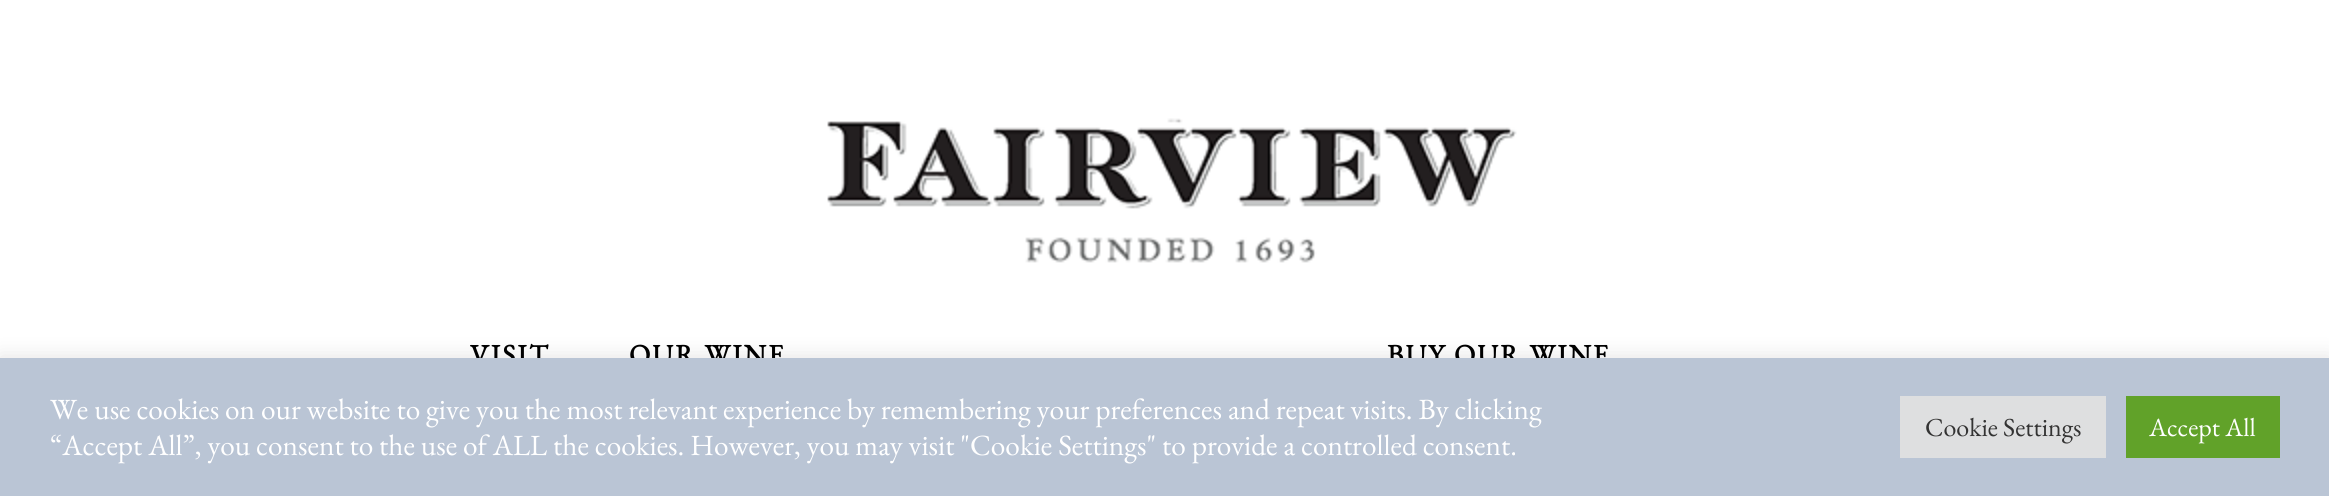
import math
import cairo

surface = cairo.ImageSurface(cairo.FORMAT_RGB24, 2329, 496)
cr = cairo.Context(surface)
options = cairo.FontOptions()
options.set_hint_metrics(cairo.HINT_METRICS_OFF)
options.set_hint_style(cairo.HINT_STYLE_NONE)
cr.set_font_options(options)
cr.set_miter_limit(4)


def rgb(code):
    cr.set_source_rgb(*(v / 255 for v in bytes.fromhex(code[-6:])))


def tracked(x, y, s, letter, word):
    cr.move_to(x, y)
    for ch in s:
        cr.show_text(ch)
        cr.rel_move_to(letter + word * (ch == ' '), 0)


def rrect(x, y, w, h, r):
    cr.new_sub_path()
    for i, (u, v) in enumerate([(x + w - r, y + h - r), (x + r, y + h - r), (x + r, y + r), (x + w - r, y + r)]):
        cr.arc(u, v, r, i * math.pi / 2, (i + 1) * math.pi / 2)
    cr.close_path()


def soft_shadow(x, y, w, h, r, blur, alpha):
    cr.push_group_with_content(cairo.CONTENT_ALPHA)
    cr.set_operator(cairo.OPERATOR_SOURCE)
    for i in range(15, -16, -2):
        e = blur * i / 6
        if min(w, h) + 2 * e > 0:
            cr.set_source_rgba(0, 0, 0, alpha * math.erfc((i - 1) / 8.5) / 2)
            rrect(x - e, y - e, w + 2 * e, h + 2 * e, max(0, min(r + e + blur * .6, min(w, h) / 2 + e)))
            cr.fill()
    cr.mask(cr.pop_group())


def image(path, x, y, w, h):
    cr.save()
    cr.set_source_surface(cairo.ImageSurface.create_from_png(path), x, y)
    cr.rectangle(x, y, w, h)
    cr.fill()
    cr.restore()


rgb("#ffffff")
cr.paint()
image("img/1.png", 827, 118, 690, 145)
rgb("#acabab")
soft_shadow(0, 356, 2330, 138, 0, 10, 0.3)
cr.select_font_face("EB Garamond", cairo.FONT_SLANT_NORMAL, cairo.FONT_WEIGHT_BOLD)
cr.set_font_size(28)
rgb("#000000")
for x, y, s in [
    (470, 364, "VISIT"),
    (629, 364, "OUR WINE"),
    (1387, 364, "BUY OUR WINE"),
]:
    tracked(x, y, s, 2, 0)
rgb("#bac5d5")
cr.rectangle(0, 358, 2329, 138)
cr.fill()
cr.select_font_face("EB Garamond")
cr.set_font_size(29.33)
rgb("#ffffff")
cr.move_to(50, 419)
cr.show_text("We use cookies on our website to give you the most relevant experience by remembering your preferences and repeat visits. By clicking")
cr.move_to(50, 455)
cr.show_text("“Accept All”, you consent to the use of ALL the cookies. However, you may visit \"Cookie Settings\" to provide a controlled consent.")
rgb("#dedfe0")
cr.rectangle(1900, 396, 206, 62)
cr.fill()
cr.set_font_size(26)
rgb("#333333")
cr.move_to(1925, 436)
cr.show_text("Cookie Settings")
rgb("#61a229")
cr.rectangle(2126, 396, 154, 62)
cr.fill()
rgb("#ffffff")
cr.move_to(2149, 436)
cr.show_text("Accept All")
surface.write_to_png("page.png")
